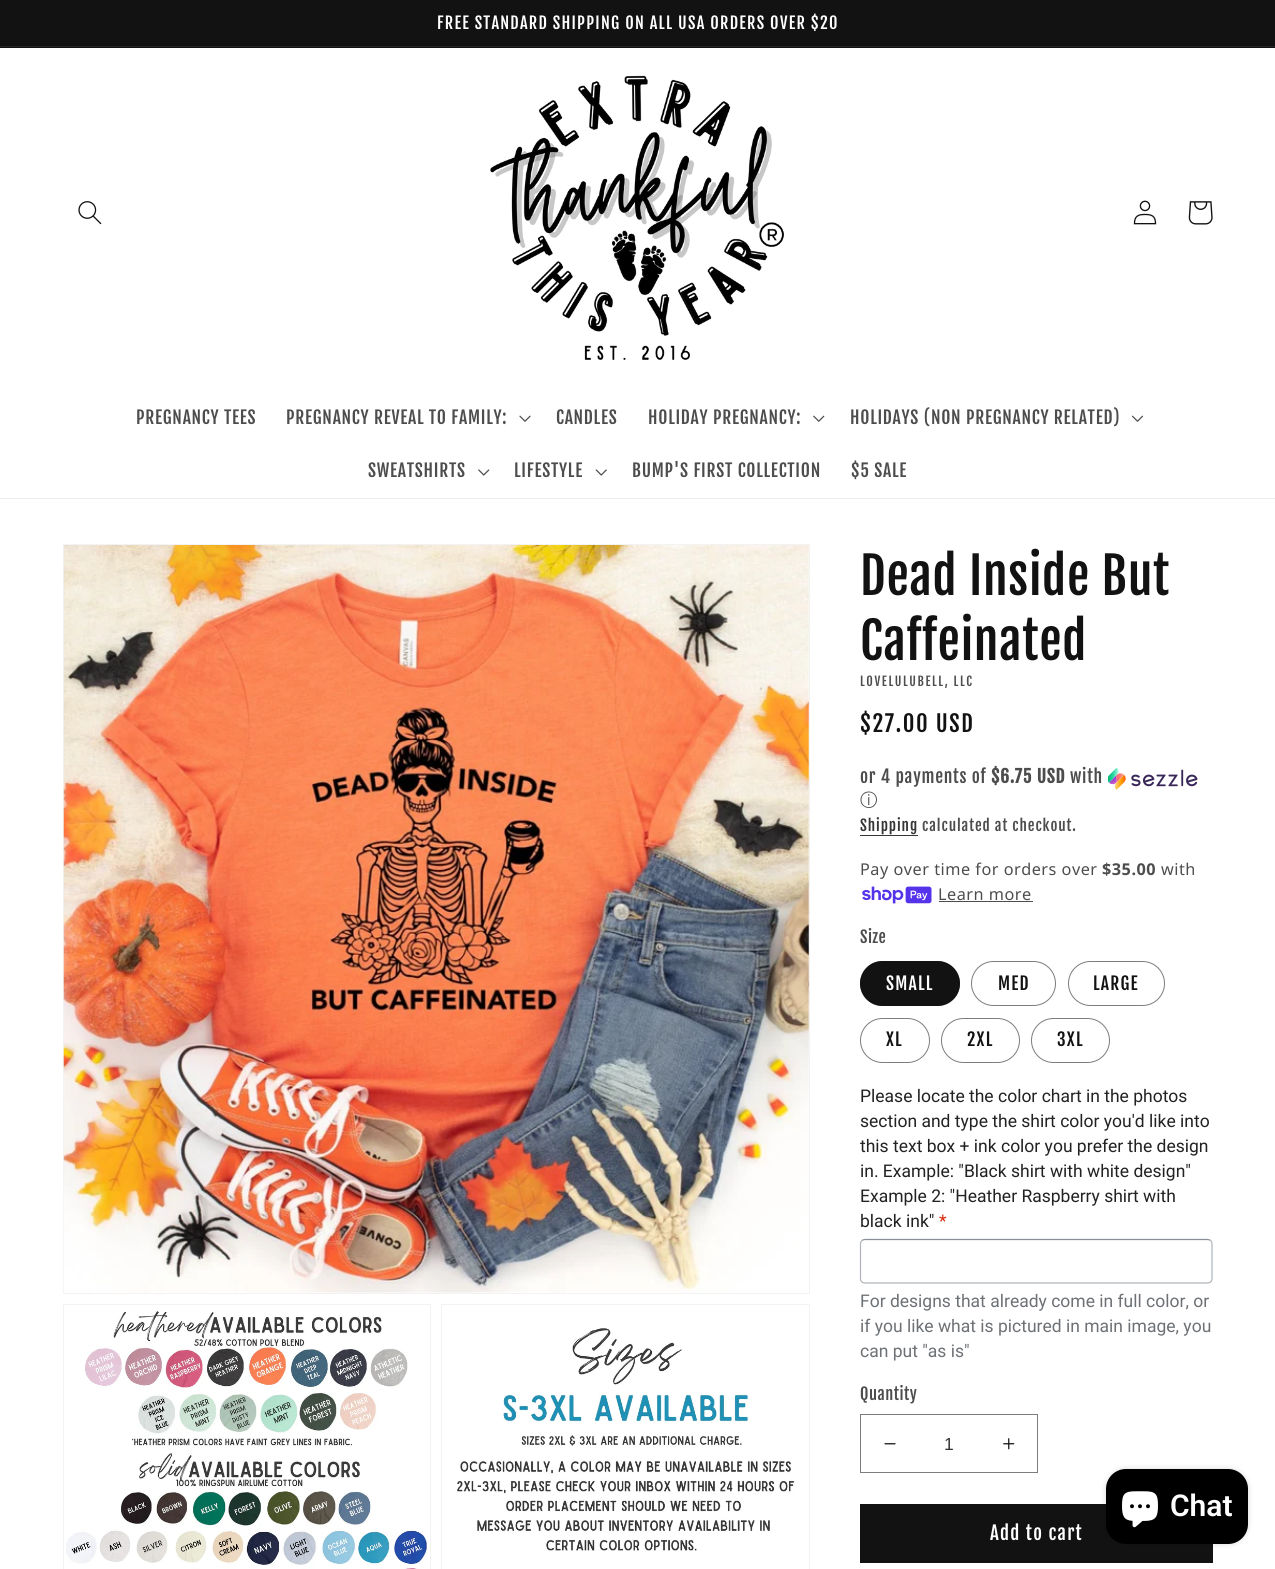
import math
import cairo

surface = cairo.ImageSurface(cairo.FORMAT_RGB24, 1275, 1569)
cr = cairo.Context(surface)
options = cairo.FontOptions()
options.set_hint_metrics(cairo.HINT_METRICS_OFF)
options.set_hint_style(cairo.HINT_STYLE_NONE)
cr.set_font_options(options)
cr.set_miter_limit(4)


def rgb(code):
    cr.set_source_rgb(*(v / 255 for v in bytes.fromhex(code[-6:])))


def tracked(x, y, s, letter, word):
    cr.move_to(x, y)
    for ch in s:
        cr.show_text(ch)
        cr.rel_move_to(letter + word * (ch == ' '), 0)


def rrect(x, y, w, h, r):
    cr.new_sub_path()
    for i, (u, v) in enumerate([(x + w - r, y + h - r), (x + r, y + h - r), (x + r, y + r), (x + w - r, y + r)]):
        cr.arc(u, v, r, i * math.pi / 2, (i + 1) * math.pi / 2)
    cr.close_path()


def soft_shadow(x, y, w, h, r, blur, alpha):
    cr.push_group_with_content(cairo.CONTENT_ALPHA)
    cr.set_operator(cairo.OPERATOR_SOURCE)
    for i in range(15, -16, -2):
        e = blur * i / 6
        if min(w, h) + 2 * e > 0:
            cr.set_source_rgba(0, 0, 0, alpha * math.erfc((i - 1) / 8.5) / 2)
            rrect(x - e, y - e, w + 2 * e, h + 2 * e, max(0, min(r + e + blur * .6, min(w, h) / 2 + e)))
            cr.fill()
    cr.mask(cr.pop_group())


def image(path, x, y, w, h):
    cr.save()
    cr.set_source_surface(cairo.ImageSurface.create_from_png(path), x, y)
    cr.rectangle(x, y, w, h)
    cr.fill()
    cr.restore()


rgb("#ffffff")
cr.paint()
for x, y, w, h, color in [
    (0, 0, 1275, 48, "#121212"),
    (0, 46, 1275, 1, "#252525"),
    (0, 498, 1275, 1, "#ececec"),
]:
    rgb(color)
    cr.rectangle(x, y, w, h)
    cr.fill()
image("img/1.png", 78, 201, 24, 24)
image("img/2.png", 490, 75, 294, 285)
image("img/3.png", 1133, 200, 24, 25)
image("img/4.png", 1188, 201, 25, 24)
image("img/5.png", 519, 415, 12, 7)
image("img/6.png", 813, 415, 12, 7)
image("img/7.png", 1131, 415, 13, 7)
image("img/8.png", 478, 469, 12, 7)
image("img/9.png", 595, 469, 12, 7)
cr.rectangle(63.5, 544.5, 746, 749)
rgb("#f3f3f3")
cr.set_line_width(1)
cr.stroke()
image("img/10.png", 63, 545, 746, 748)
cr.rectangle(63.5, 1304.5, 367, 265)
cr.stroke()
image("img/11.png", 66, 1311, 362, 258)
cr.rectangle(441.5, 1304.5, 368, 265)
cr.stroke()
image("img/12.png", 457, 1328, 338, 223)
image("img/13.png", 1108, 768, 90, 22)
rgb("#363636")
cr.rectangle(860, 835, 58, 1)
cr.fill()
image("img/14.png", 862, 886, 70, 18)
rgb("#4d4d4d")
cr.rectangle(939, 901, 94, 1)
cr.fill()
rgb("#121212")
rrect(860, 961, 100, 45, 22.5)
cr.fill()
rrect(860.5, 961.5, 99, 44, 22)
cr.set_source_rgba(0.071, 0.071, 0.071, 0.55)
cr.stroke()
rrect(971.5, 961.5, 84, 44, 22)
rgb("#7d7d7d")
cr.stroke()
rrect(1068.5, 961.5, 96, 44, 22)
cr.stroke()
rrect(860.5, 1018.5, 69, 44, 22)
cr.stroke()
rrect(941.5, 1018.5, 78, 44, 22)
cr.stroke()
rrect(1031.5, 1018.5, 78, 44, 22)
cr.stroke()
cr.new_path()
cr.move_to(862, 1240.5)
cr.curve_to(862.5, 1240, 864, 1239.5, 865, 1239.5)
cr.line_to(1207.5, 1239.5)
cr.curve_to(1208.5, 1239.5, 1210, 1240, 1210.5, 1240.5)
rgb("#898f94")
cr.set_line_width(1.2)
cr.stroke()
cr.new_path()
cr.move_to(1210.5, 1240.5)
cr.curve_to(1211.5, 1241.5, 1212, 1242.5, 1212, 1244)
cr.line_to(1212, 1279)
cr.curve_to(1212, 1280, 1211.5, 1281, 1210.5, 1282)
cr.curve_to(1210, 1282.5, 1208.5, 1283, 1207.5, 1283)
cr.line_to(865, 1283)
cr.curve_to(864, 1283, 862.5, 1282.5, 862, 1282)
cr.curve_to(861, 1281, 860.5, 1280, 860.5, 1279)
cr.line_to(860.5, 1244)
cr.curve_to(860.5, 1242.5, 861, 1241.5, 862, 1240.5)
rgb("#aeb4b9")
cr.stroke()
image("img/15.png", 884, 1443, 12, 2)
image("img/16.png", 1003, 1438, 12, 12)
cr.rectangle(860.5, 1414.5, 177, 58)
rgb("#7d7d7d")
cr.set_line_width(1)
cr.stroke()
rgb("#121212")
cr.rectangle(860, 1504, 353, 59)
cr.fill()
rgb("#000000")
soft_shadow(1106, 1469, 142, 75, 20, 3, 0.15)
rgb("#000000")
rrect(1106, 1469, 142, 75, 20)
cr.fill()
image("img/17.png", 1122, 1491, 36, 37)
cr.select_font_face("Fjalla One")
cr.set_font_size(16.25)
rgb("#ffffff")
tracked(437, 29, "FREE STANDARD SHIPPING ON ALL USA ORDERS OVER $20", 1.25, 0)
cr.set_font_size(17.5)
rgb("#4d4d4d")
for x, y, s in [
    (136, 424, "PREGNANCY TEES"),
    (286, 424, "PREGNANCY REVEAL TO FAMILY:"),
    (556, 424, "CANDLES"),
    (648, 424, "HOLIDAY PREGNANCY:"),
    (850, 424, "HOLIDAYS (NON PREGNANCY RELATED)"),
    (368, 477, "SWEATSHIRTS"),
    (514, 477, "LIFESTYLE"),
    (632, 477, "BUMP'S FIRST COLLECTION"),
    (851, 477, "$5 SALE"),
]:
    tracked(x, y, s, 0.75, 0)
cr.set_font_size(50)
rgb("#121212")
tracked(860, 595, "Dead Inside But", 0.75, 0)
tracked(860, 660, "Caffeinated", 0.75, 0)
cr.set_font_size(12.5)
rgb("#4d4d4d")
tracked(860, 686, "LOVELULUBELL, LLC", 1.6, 0)
cr.set_font_size(22.5)
rgb("#121212")
tracked(860, 732, "$27.00 USD", 1.6, 0)
cr.set_font_size(17.5)
rgb("#4d4d4d")
tracked(860, 783, "or 4 payments of", 0.75, 0)
cr.select_font_face("Fjalla One", cairo.FONT_SLANT_NORMAL, cairo.FONT_WEIGHT_BOLD)
tracked(991, 783, "$6.75 USD", 0.75, 0)
cr.select_font_face("Fjalla One")
tracked(1070, 783, "with", 0.75, 0)
cr.select_font_face("WenQuanYi Zen Hei Medium")
tracked(860, 806, "ⓘ", 0.75, 0)
cr.select_font_face("Fjalla One")
cr.set_font_size(15)
rgb("#363636")
tracked(860, 831, "Shipping", 0.9, 0)
rgb("#4d4d4d")
tracked(922, 831, "calculated at checkout.", 0.9, 0)
cr.select_font_face("Noto Sans")
cr.set_font_size(16.25)
tracked(860, 875, "Pay over time for orders over", 0.5, 0)
cr.select_font_face("Noto Sans", cairo.FONT_SLANT_NORMAL, cairo.FONT_WEIGHT_BOLD)
tracked(1102, 875, "$35.00", 0.5, 0)
cr.select_font_face("Noto Sans")
tracked(1161, 875, "with", 0.5, 0)
tracked(938, 900, "Learn more", 0.5, 0)
cr.select_font_face("Fjalla One")
tracked(860, 943, "Size", 0.5, 0)
cr.set_font_size(17.5)
rgb("#ffffff")
tracked(886, 990, "SMALL", 1.25, 0)
rgb("#121212")
for x, y, s in [
    (998, 990, "MED"),
    (1093, 990, "LARGE"),
    (886, 1046, "XL"),
    (967, 1046, "2XL"),
    (1057, 1046, "3XL"),
]:
    tracked(x, y, s, 1.25, 0)
cr.select_font_face("Roboto")
rgb("#222223")
for x, y, s in [
    (860, 1102, "Please locate the color chart in the photos"),
    (860, 1127, "section and type the shirt color you'd like into"),
    (860, 1152, "this text box + ink color you prefer the design"),
    (860, 1177, "in. Example: \"Black shirt with white design\""),
    (860, 1202, "Example 2: \"Heather Raspberry shirt with"),
    (860, 1227, "black ink\""),
]:
    cr.move_to(x, y)
    cr.show_text(s)
rgb("#d72c0d")
cr.move_to(939, 1227)
cr.show_text("*")
rgb("#6d7175")
for x, y, s in [
    (860, 1307, "For designs that already come in full color, or"),
    (860, 1332, "if you like what is pictured in main image, you"),
    (860, 1357, "can put \"as is\""),
]:
    cr.move_to(x, y)
    cr.show_text(s)
cr.select_font_face("Fjalla One")
cr.set_font_size(16.25)
rgb("#4d4d4d")
tracked(860, 1400, "Quantity", 0.5, 0)
cr.select_font_face("Liberation Sans")
cr.set_font_size(17.5)
rgb("#363636")
cr.move_to(944, 1450)
cr.show_text("1")
cr.select_font_face("Fjalla One")
cr.set_font_size(18.75)
rgb("#ffffff")
tracked(990, 1540, "Add to cart", 1.25, 0)
cr.select_font_face("Roboto SemiBold")
cr.set_font_size(30)
cr.move_to(1170, 1516)
cr.show_text("Chat")
surface.write_to_png("page.png")
